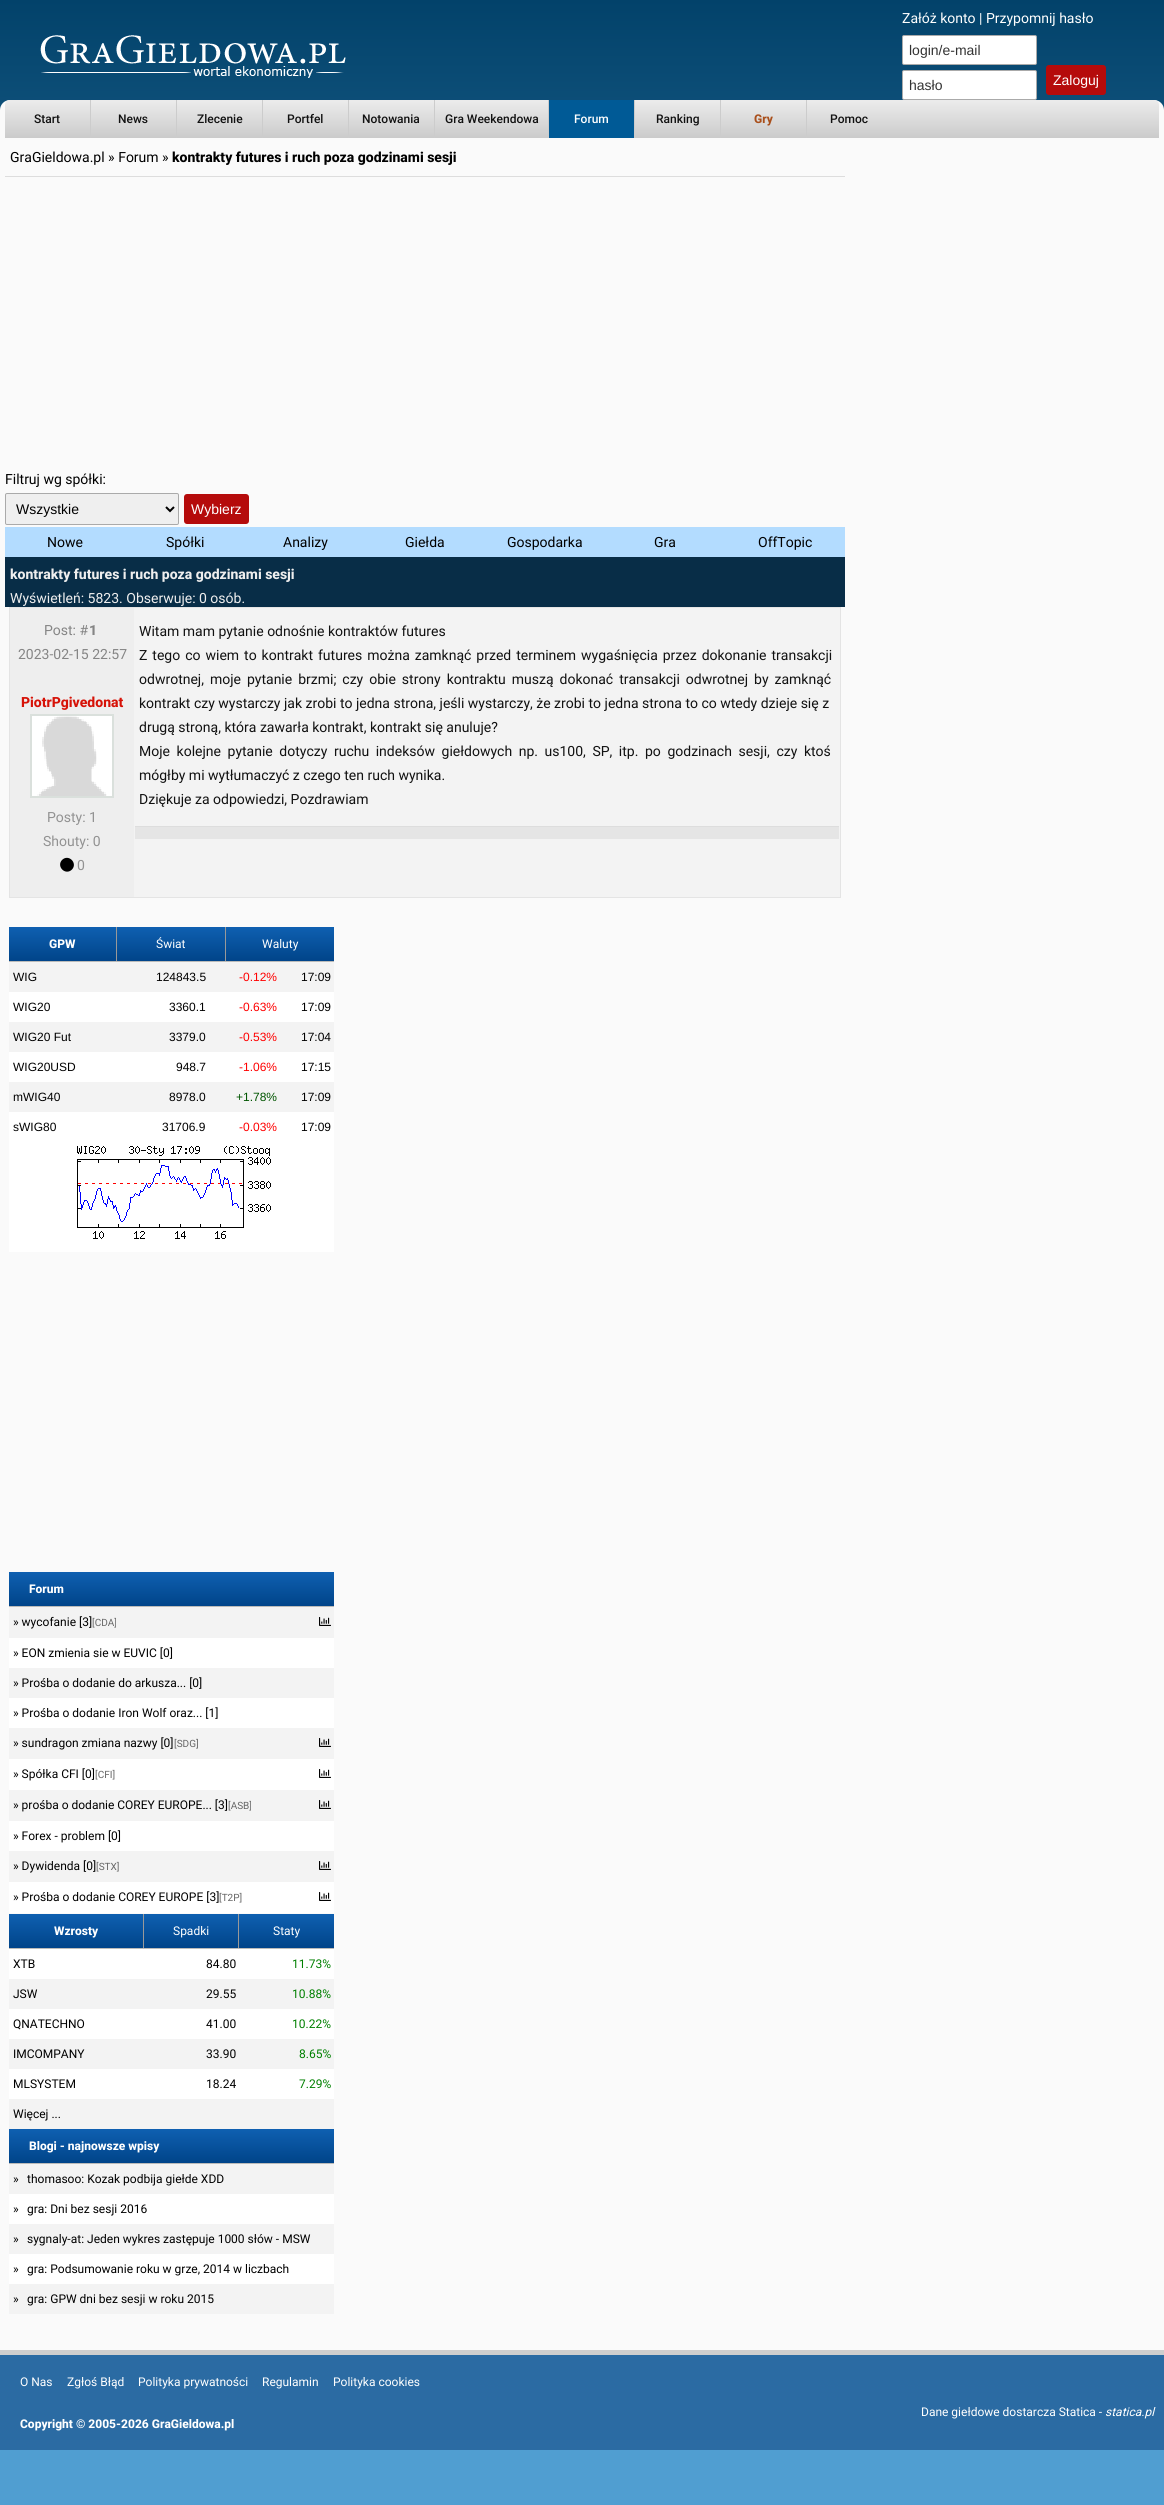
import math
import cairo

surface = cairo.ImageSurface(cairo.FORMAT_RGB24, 1164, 2505)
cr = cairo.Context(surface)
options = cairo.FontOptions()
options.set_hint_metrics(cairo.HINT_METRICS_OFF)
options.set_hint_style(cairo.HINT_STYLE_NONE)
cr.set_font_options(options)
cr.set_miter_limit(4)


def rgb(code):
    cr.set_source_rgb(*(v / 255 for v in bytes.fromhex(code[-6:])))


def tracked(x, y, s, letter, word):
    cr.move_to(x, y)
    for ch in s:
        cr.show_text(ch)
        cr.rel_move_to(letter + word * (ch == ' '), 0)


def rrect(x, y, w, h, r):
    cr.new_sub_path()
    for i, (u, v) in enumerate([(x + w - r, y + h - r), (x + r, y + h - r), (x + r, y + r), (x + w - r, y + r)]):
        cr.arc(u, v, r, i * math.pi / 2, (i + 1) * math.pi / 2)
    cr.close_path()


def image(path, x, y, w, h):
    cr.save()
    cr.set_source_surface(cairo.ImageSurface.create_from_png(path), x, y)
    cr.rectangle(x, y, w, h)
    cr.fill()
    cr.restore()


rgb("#ffffff")
cr.paint()
gradient = cairo.LinearGradient(582, 0, 582, 2505)
gradient.add_color_stop_rgba(0, 0.008, 0.259, 0.416, 1)
gradient.add_color_stop_rgba(0.32, 0.314, 0.62, 0.82, 1)
cr.set_source(gradient)
cr.rectangle(0, 0, 1164, 2505)
cr.fill()
image("img/1.png", 40, 35, 306, 43)
rgb("#ffffff")
rrect(902.5, 35.5, 134, 29, 1.5)
cr.fill_preserve()
rgb("#aaaaaa")
cr.set_line_width(1)
cr.stroke()
rgb("#ffffff")
rrect(902.5, 70.5, 134, 29, 1.5)
cr.fill_preserve()
rgb("#aaaaaa")
cr.stroke()
rgb("#b50b0b")
rrect(1046, 65, 60, 30, 3)
cr.fill()
rgb("#fafafa")
cr.new_path()
cr.move_to(10, 100)
cr.line_to(1154, 100)
cr.curve_to(1159.5, 100, 1164, 104.5, 1164, 110)
cr.line_to(1164, 2350)
cr.line_to(0, 2350)
cr.line_to(0, 110)
cr.curve_to(0, 104.5, 4.5, 100, 10, 100)
cr.close_path()
cr.fill()
gradient = cairo.LinearGradient(582, 100, 582, 138)
gradient.add_color_stop_rgba(0, 0.925, 0.925, 0.925, 1)
gradient.add_color_stop_rgba(1, 0.796, 0.796, 0.796, 1)
cr.set_source(gradient)
cr.new_path()
cr.move_to(10, 100)
cr.line_to(1154, 100)
cr.curve_to(1157, 100, 1159, 102, 1159, 105)
cr.line_to(1159, 138)
cr.line_to(5, 138)
cr.line_to(5, 105)
cr.curve_to(5, 102, 7, 100, 10, 100)
cr.close_path()
cr.fill()
for x, y, w, h, color in [
    (90, 100, 1, 38, "#cccccc"),
    (176, 100, 1, 38, "#cccccc"),
    (262, 100, 1, 38, "#cccccc"),
    (348, 100, 1, 38, "#cccccc"),
    (434, 100, 1, 38, "#cccccc"),
    (548, 100, 1, 38, "#cccccc"),
    (549, 100, 85, 38, "#005a96"),
    (634, 100, 1, 38, "#cccccc"),
    (720, 100, 1, 38, "#cccccc"),
    (806, 100, 1, 38, "#cccccc"),
    (5, 176, 840, 1, "#dddddd"),
]:
    rgb(color)
    cr.rectangle(x, y, w, h)
    cr.fill()
rgb("#efefef")
rrect(5.5, 493.5, 173, 31, 1.5)
cr.fill_preserve()
rgb("#aaaaaa")
cr.stroke()
cr.new_path()
cr.move_to(166, 507)
cr.line_to(170, 511)
cr.line_to(174, 507)
rgb("#000000")
cr.set_line_width(2)
cr.stroke()
rgb("#b50b0b")
rrect(184, 494, 65, 30, 3)
cr.fill()
for x, y, w, h, color in [
    (5, 527, 840, 30, "#b3dcff"),
    (5, 557, 840, 50, "#082d47"),
    (9, 607, 832, 1, "#e4e4e4"),
    (840, 607, 1, 291, "#e4e4e4"),
    (9, 897, 832, 1, "#e4e4e4"),
    (9, 607, 1, 291, "#e4e4e4"),
    (10, 608, 124, 289, "#eeeeee"),
]:
    rgb(color)
    cr.rectangle(x, y, w, h)
    cr.fill()
cr.rectangle(31, 715, 82, 82)
rgb("#dae0dc")
cr.stroke()
image("img/2.png", 32, 716, 80, 80)
rgb("#000000")
cr.new_path()
cr.move_to(62, 860)
cr.curve_to(68.5, 853.5, 78, 863, 72, 869.5)
cr.curve_to(65.5, 876, 56, 866.5, 62, 860)
cr.close_path()
cr.fill()
for x, y, w, h, color in [
    (134, 608, 706, 289, "#f3f3f3"),
    (135, 827, 704, 12, "#e5e5e5"),
    (135, 826, 704, 1, "#dddddd"),
]:
    rgb(color)
    cr.rectangle(x, y, w, h)
    cr.fill()
gradient = cairo.LinearGradient(63, 927, 63, 961)
gradient.add_color_stop_rgba(0, 0.059, 0.376, 0.694, 1)
gradient.add_color_stop_rgba(1, 0, 0.267, 0.537, 1)
cr.set_source(gradient)
cr.rectangle(9, 927, 107, 34)
cr.fill()
rgb("#999999")
cr.rectangle(116, 927, 1, 35)
cr.fill()
rgb("#bbbbb9")
cr.rectangle(9, 961, 108, 1)
cr.fill()
gradient = cairo.LinearGradient(171, 927, 171, 961)
gradient.add_color_stop_rgba(0, 0.059, 0.376, 0.694, 1)
gradient.add_color_stop_rgba(1, 0, 0.267, 0.537, 1)
cr.set_source(gradient)
cr.rectangle(117, 927, 108, 34)
cr.fill()
rgb("#999999")
cr.rectangle(225, 927, 1, 35)
cr.fill()
rgb("#bbbbb9")
cr.rectangle(117, 961, 217, 1)
cr.fill()
gradient = cairo.LinearGradient(280, 927, 280, 961)
gradient.add_color_stop_rgba(0, 0.059, 0.376, 0.694, 1)
gradient.add_color_stop_rgba(1, 0, 0.267, 0.537, 1)
cr.set_source(gradient)
cr.rectangle(226, 927, 108, 34)
cr.fill()
for x, y, w, h, color in [
    (9, 962, 325, 30, "#f3f3f3"),
    (9, 992, 325, 30, "#ffffff"),
    (9, 1022, 325, 30, "#f3f3f3"),
    (9, 1052, 325, 30, "#ffffff"),
    (9, 1082, 325, 30, "#f3f3f3"),
    (9, 1112, 325, 140, "#ffffff"),
]:
    rgb(color)
    cr.rectangle(x, y, w, h)
    cr.fill()
image("img/3.png", 77, 1146, 194, 93)
gradient = cairo.LinearGradient(172, 1572, 172, 1606)
gradient.add_color_stop_rgba(0, 0.059, 0.376, 0.694, 1)
gradient.add_color_stop_rgba(1, 0, 0.267, 0.537, 1)
cr.set_source(gradient)
cr.rectangle(9, 1572, 325, 34)
cr.fill()
rgb("#bbbbb9")
cr.rectangle(9, 1606, 325, 1)
cr.fill()
rgb("#f3f3f3")
cr.rectangle(9, 1607, 325, 31)
cr.fill()
image("img/4.png", 319, 1617, 12, 9)
for x, y, w, h, color in [
    (9, 1638, 325, 30, "#ffffff"),
    (9, 1668, 325, 30, "#f3f3f3"),
    (9, 1698, 325, 30, "#ffffff"),
    (9, 1728, 325, 31, "#f3f3f3"),
]:
    rgb(color)
    cr.rectangle(x, y, w, h)
    cr.fill()
image("img/4.png", 319, 1738, 12, 9)
rgb("#ffffff")
cr.rectangle(9, 1759, 325, 31)
cr.fill()
image("img/5.png", 319, 1769, 12, 9)
rgb("#f3f3f3")
cr.rectangle(9, 1790, 325, 31)
cr.fill()
image("img/4.png", 319, 1800, 12, 9)
rgb("#ffffff")
cr.rectangle(9, 1821, 325, 30)
cr.fill()
rgb("#f3f3f3")
cr.rectangle(9, 1851, 325, 31)
cr.fill()
image("img/4.png", 319, 1861, 12, 9)
rgb("#ffffff")
cr.rectangle(9, 1882, 325, 31)
cr.fill()
image("img/5.png", 319, 1892, 12, 9)
gradient = cairo.LinearGradient(76, 1914, 76, 1948)
gradient.add_color_stop_rgba(0, 0.059, 0.376, 0.694, 1)
gradient.add_color_stop_rgba(1, 0, 0.267, 0.537, 1)
cr.set_source(gradient)
cr.rectangle(9, 1914, 134, 34)
cr.fill()
rgb("#999999")
cr.rectangle(143, 1914, 1, 35)
cr.fill()
rgb("#bbbbb9")
cr.rectangle(9, 1948, 135, 1)
cr.fill()
gradient = cairo.LinearGradient(191, 1914, 191, 1948)
gradient.add_color_stop_rgba(0, 0.059, 0.376, 0.694, 1)
gradient.add_color_stop_rgba(1, 0, 0.267, 0.537, 1)
cr.set_source(gradient)
cr.rectangle(144, 1914, 94, 34)
cr.fill()
rgb("#999999")
cr.rectangle(238, 1914, 1, 35)
cr.fill()
rgb("#bbbbb9")
cr.rectangle(144, 1948, 190, 1)
cr.fill()
gradient = cairo.LinearGradient(287, 1914, 287, 1948)
gradient.add_color_stop_rgba(0, 0.059, 0.376, 0.694, 1)
gradient.add_color_stop_rgba(1, 0, 0.267, 0.537, 1)
cr.set_source(gradient)
cr.rectangle(239, 1914, 95, 34)
cr.fill()
for x, y, w, h, color in [
    (9, 1949, 325, 30, "#ffffff"),
    (9, 1979, 325, 30, "#f3f3f3"),
    (9, 2009, 325, 30, "#ffffff"),
    (9, 2039, 325, 30, "#f3f3f3"),
    (9, 2069, 325, 30, "#ffffff"),
    (9, 2099, 325, 30, "#f3f3f3"),
]:
    rgb(color)
    cr.rectangle(x, y, w, h)
    cr.fill()
gradient = cairo.LinearGradient(172, 2129, 172, 2163)
gradient.add_color_stop_rgba(0, 0.059, 0.376, 0.694, 1)
gradient.add_color_stop_rgba(1, 0, 0.267, 0.537, 1)
cr.set_source(gradient)
cr.rectangle(9, 2129, 325, 34)
cr.fill()
for x, y, w, h, color in [
    (9, 2163, 325, 1, "#bbbbb9"),
    (9, 2164, 325, 30, "#f3f3f3"),
    (9, 2194, 325, 30, "#ffffff"),
    (9, 2224, 325, 30, "#f3f3f3"),
    (9, 2254, 325, 30, "#ffffff"),
    (9, 2284, 325, 30, "#f3f3f3"),
    (0, 2355, 1164, 95, "#2b6ba3"),
    (0, 2350, 1164, 5, "#cecece"),
]:
    rgb(color)
    cr.rectangle(x, y, w, h)
    cr.fill()
cr.select_font_face("Roboto")
cr.set_font_size(14)
rgb("#ffffff")
cr.move_to(902, 23)
cr.show_text("Załóż konto | Przypomnij hasło")
cr.select_font_face("Liberation Sans")
rgb("#333333")
cr.move_to(909, 55)
cr.show_text("login/e-mail")
cr.move_to(909, 90)
cr.show_text("hasło")
rgb("#ffffff")
cr.move_to(1053, 85)
cr.show_text("Zaloguj")
cr.select_font_face("Roboto Medium")
cr.set_font_size(12)
rgb("#111111")
for x, y, s in [
    (34, 123, "Start"),
    (118, 123, "News"),
    (197, 123, "Zlecenie"),
    (287, 123, "Portfel"),
    (362, 123, "Notowania"),
    (445, 123, "Gra Weekendowa"),
]:
    cr.move_to(x, y)
    cr.show_text(s)
rgb("#ffffff")
cr.move_to(574, 123)
cr.show_text("Forum")
rgb("#111111")
cr.move_to(656, 123)
cr.show_text("Ranking")
cr.select_font_face("Roboto ExtraBold")
rgb("#a94f1b")
cr.move_to(754, 123)
cr.show_text("Gry")
cr.select_font_face("Roboto Medium")
rgb("#111111")
cr.move_to(830, 123)
cr.show_text("Pomoc")
cr.select_font_face("Roboto")
cr.set_font_size(14)
rgb("#000000")
cr.move_to(10, 162)
cr.show_text("GraGieldowa.pl » Forum »")
cr.select_font_face("Roboto ExtraBold")
cr.move_to(172, 162)
cr.show_text("kontrakty futures i ruch poza godzinami sesji")
cr.select_font_face("Roboto")
cr.move_to(5, 484)
cr.show_text("Filtruj wg spółki:")
cr.select_font_face("Liberation Sans")
cr.move_to(16, 514)
cr.show_text("Wszystkie")
rgb("#ffffff")
cr.move_to(191, 514)
cr.show_text("Wybierz")
cr.select_font_face("Roboto")
rgb("#000000")
for x, y, s in [
    (47, 547, "Nowe"),
    (166, 547, "Spółki"),
    (283, 547, "Analizy"),
    (405, 547, "Giełda"),
    (507, 547, "Gospodarka"),
    (654, 547, "Gra"),
    (758, 547, "OffTopic"),
]:
    cr.move_to(x, y)
    cr.show_text(s)
cr.select_font_face("Roboto ExtraBold")
rgb("#eeeeee")
cr.move_to(10, 579)
cr.show_text("kontrakty futures i ruch poza godzinami sesji")
cr.select_font_face("Roboto")
cr.move_to(10, 603)
cr.show_text("Wyświetleń: 5823. Obserwuje: 0 osób.")
rgb("#858585")
cr.move_to(44, 635)
cr.show_text("Post: #")
cr.select_font_face("Roboto ExtraBold")
cr.move_to(89, 635)
cr.show_text("1")
cr.select_font_face("Roboto")
cr.move_to(18, 659)
cr.show_text("2023-02-15 22:57")
cr.select_font_face("Roboto ExtraBold")
rgb("#d61207")
cr.move_to(21, 707)
cr.show_text("PiotrPgivedonat")
cr.select_font_face("Roboto")
rgb("#929292")
for x, y, s in [
    (47, 822, "Posty: 1"),
    (43, 846, "Shouty: 0"),
    (77, 870, "0"),
]:
    cr.move_to(x, y)
    cr.show_text(s)
rgb("#111111")
cr.move_to(139, 636)
cr.show_text("Witam mam pytanie odnośnie kontraktów futures")
tracked(139, 660, "Z tego co wiem to kontrakt futures można zamknąć przed terminem wygaśnięcia przez dokonanie transakcji", 0, 1.5)
tracked(139, 684, "odwrotnej, moje pytanie brzmi; czy obie strony kontraktu muszą dokonać transakcji odwrotnej by zamknąć", 0, 2.5)
cr.move_to(139, 708)
cr.show_text("kontrakt czy wystarczy jak zrobi to jedna strona, jeśli wystarczy, że zrobi to jedna strona to co wtedy dzieje się z")
cr.move_to(139, 732)
cr.show_text("drugą stroną, która zawarła kontrakt, kontrakt się anuluje?")
tracked(139, 756, "Moje kolejne pytanie dotyczy ruchu indeksów giełdowych np. us100, SP, itp. po godzinach sesji, czy ktoś", 0, 3.1)
cr.move_to(139, 780)
cr.show_text("mógłby mi wytłumaczyć z czego ten ruch wynika.")
cr.move_to(139, 804)
cr.show_text("Dziękuje za odpowiedzi, Pozdrawiam")
cr.select_font_face("Roboto ExtraBold")
cr.set_font_size(12)
rgb("#ffffff")
cr.move_to(49, 948)
cr.show_text("GPW")
cr.select_font_face("Roboto")
cr.move_to(156, 948)
cr.show_text("Świat")
cr.move_to(262, 948)
cr.show_text("Waluty")
cr.select_font_face("Liberation Sans")
rgb("#000000")
cr.move_to(13, 981)
cr.show_text("WIG")
cr.move_to(156, 981)
cr.show_text("124843.5")
rgb("#ff0000")
cr.move_to(239, 981)
cr.show_text("-0.12%")
rgb("#000000")
for x, y, s in [
    (301, 981, "17:09"),
    (13, 1011, "WIG20"),
    (169, 1011, "3360.1"),
]:
    cr.move_to(x, y)
    cr.show_text(s)
rgb("#ff0000")
cr.move_to(239, 1011)
cr.show_text("-0.63%")
rgb("#000000")
for x, y, s in [
    (301, 1011, "17:09"),
    (13, 1041, "WIG20 Fut"),
    (169, 1041, "3379.0"),
]:
    cr.move_to(x, y)
    cr.show_text(s)
rgb("#ff0000")
cr.move_to(239, 1041)
cr.show_text("-0.53%")
rgb("#000000")
for x, y, s in [
    (301, 1041, "17:04"),
    (13, 1071, "WIG20USD"),
    (176, 1071, "948.7"),
]:
    cr.move_to(x, y)
    cr.show_text(s)
rgb("#ff0000")
cr.move_to(239, 1071)
cr.show_text("-1.06%")
rgb("#000000")
for x, y, s in [
    (301, 1071, "17:15"),
    (13, 1101, "mWIG40"),
    (169, 1101, "8978.0"),
]:
    cr.move_to(x, y)
    cr.show_text(s)
rgb("#005500")
cr.move_to(236, 1101)
cr.show_text("+1.78%")
rgb("#000000")
for x, y, s in [
    (301, 1101, "17:09"),
    (13, 1131, "sWIG80"),
    (162, 1131, "31706.9"),
]:
    cr.move_to(x, y)
    cr.show_text(s)
rgb("#ff0000")
cr.move_to(239, 1131)
cr.show_text("-0.03%")
rgb("#000000")
cr.move_to(301, 1131)
cr.show_text("17:09")
cr.select_font_face("Roboto ExtraBold")
rgb("#ffffff")
cr.move_to(29, 1593)
cr.show_text("Forum")
cr.select_font_face("Roboto")
rgb("#000000")
cr.move_to(13, 1626)
cr.show_text("» wycofanie [3]")
cr.set_font_size(10)
rgb("#666666")
cr.move_to(92, 1626)
cr.show_text("[CDA]")
cr.set_font_size(12)
rgb("#000000")
for x, y, s in [
    (13, 1657, "» EON zmienia sie w EUVIC [0]"),
    (13, 1687, "» Prośba o dodanie do arkusza... [0]"),
    (13, 1717, "» Prośba o dodanie Iron Wolf oraz... [1]"),
    (13, 1747, "» sundragon zmiana nazwy [0]"),
]:
    cr.move_to(x, y)
    cr.show_text(s)
cr.set_font_size(10)
rgb("#666666")
cr.move_to(174, 1747)
cr.show_text("[SDG]")
cr.set_font_size(12)
rgb("#000000")
cr.move_to(13, 1778)
cr.show_text("» Spółka CFI [0]")
cr.set_font_size(10)
rgb("#666666")
cr.move_to(95, 1778)
cr.show_text("[CFI]")
cr.set_font_size(12)
rgb("#000000")
cr.move_to(13, 1809)
cr.show_text("» prośba o dodanie COREY EUROPE... [3]")
cr.set_font_size(10)
rgb("#666666")
cr.move_to(228, 1809)
cr.show_text("[ASB]")
cr.set_font_size(12)
rgb("#000000")
cr.move_to(13, 1840)
cr.show_text("» Forex - problem [0]")
cr.move_to(13, 1870)
cr.show_text("» Dywidenda [0]")
cr.set_font_size(10)
rgb("#666666")
cr.move_to(96, 1870)
cr.show_text("[STX]")
cr.set_font_size(12)
rgb("#000000")
cr.move_to(13, 1901)
cr.show_text("» Prośba o dodanie COREY EUROPE [3]")
cr.set_font_size(10)
rgb("#666666")
cr.move_to(219, 1901)
cr.show_text("[T2P]")
cr.select_font_face("Roboto ExtraBold")
cr.set_font_size(12)
rgb("#ffffff")
cr.move_to(54, 1935)
cr.show_text("Wzrosty")
cr.select_font_face("Roboto")
cr.move_to(173, 1935)
cr.show_text("Spadki")
cr.move_to(273, 1935)
cr.show_text("Staty")
rgb("#000000")
cr.move_to(13, 1968)
cr.show_text("XTB")
cr.move_to(206, 1968)
cr.show_text("84.80")
rgb("#008000")
cr.move_to(292, 1968)
cr.show_text("11.73%")
rgb("#000000")
cr.move_to(13, 1998)
cr.show_text("JSW")
cr.move_to(206, 1998)
cr.show_text("29.55")
rgb("#008000")
cr.move_to(292, 1998)
cr.show_text("10.88%")
rgb("#000000")
cr.move_to(13, 2028)
cr.show_text("QNATECHNO")
cr.move_to(206, 2028)
cr.show_text("41.00")
rgb("#008000")
cr.move_to(292, 2028)
cr.show_text("10.22%")
rgb("#000000")
cr.move_to(13, 2058)
cr.show_text("IMCOMPANY")
cr.move_to(206, 2058)
cr.show_text("33.90")
rgb("#008000")
cr.move_to(299, 2058)
cr.show_text("8.65%")
rgb("#000000")
cr.move_to(13, 2088)
cr.show_text("MLSYSTEM")
cr.move_to(206, 2088)
cr.show_text("18.24")
rgb("#008000")
cr.move_to(299, 2088)
cr.show_text("7.29%")
rgb("#000000")
cr.move_to(13, 2118)
cr.show_text("Więcej ...")
cr.select_font_face("Roboto ExtraBold")
rgb("#ffffff")
cr.move_to(29, 2150)
cr.show_text("Blogi - najnowsze wpisy")
cr.select_font_face("Roboto")
rgb("#000000")
for x, y, s in [
    (13, 2183, "»"),
    (27, 2183, "thomasoo: Kozak podbija giełde XDD"),
    (13, 2213, "»"),
    (27, 2213, "gra: Dni bez sesji 2016"),
    (13, 2243, "»"),
    (27, 2243, "sygnaly-at: Jeden wykres zastępuje 1000 słów - MSW"),
    (13, 2273, "»"),
    (27, 2273, "gra: Podsumowanie roku w grze, 2014 w liczbach"),
    (13, 2303, "»"),
    (27, 2303, "gra: GPW dni bez sesji w roku 2015"),
]:
    cr.move_to(x, y)
    cr.show_text(s)
rgb("#ffffff")
for x, y, s in [
    (20, 2386, "O Nas"),
    (67, 2386, "Zgłoś Błąd"),
    (138, 2386, "Polityka prywatności"),
    (262, 2386, "Regulamin"),
    (333, 2386, "Polityka cookies"),
    (921, 2416, "Dane giełdowe dostarcza Statica -"),
]:
    cr.move_to(x, y)
    cr.show_text(s)
cr.select_font_face("Roboto", cairo.FONT_SLANT_ITALIC)
cr.move_to(1105, 2416)
cr.show_text("statica.pl")
cr.select_font_face("Roboto ExtraBold")
cr.move_to(20, 2428)
cr.show_text("Copyright © 2005-2026 GraGieldowa.pl")
surface.write_to_png("page.png")
